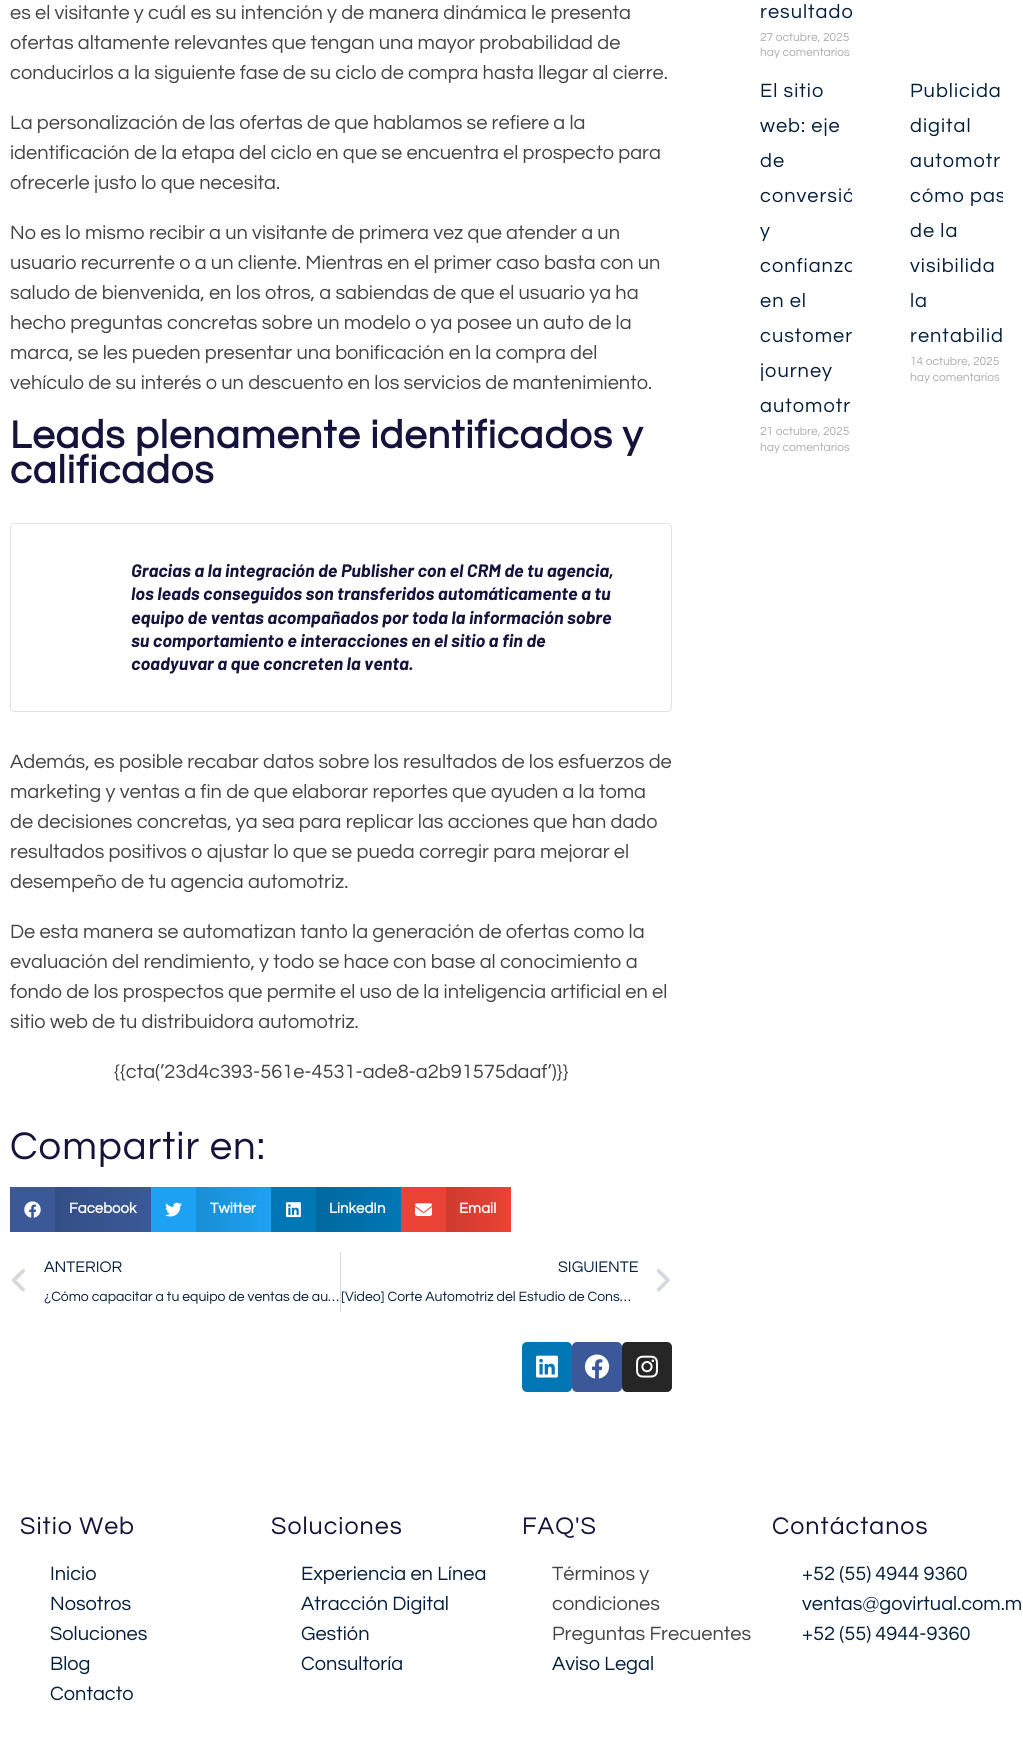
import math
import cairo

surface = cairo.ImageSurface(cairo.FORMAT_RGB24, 1023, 1749)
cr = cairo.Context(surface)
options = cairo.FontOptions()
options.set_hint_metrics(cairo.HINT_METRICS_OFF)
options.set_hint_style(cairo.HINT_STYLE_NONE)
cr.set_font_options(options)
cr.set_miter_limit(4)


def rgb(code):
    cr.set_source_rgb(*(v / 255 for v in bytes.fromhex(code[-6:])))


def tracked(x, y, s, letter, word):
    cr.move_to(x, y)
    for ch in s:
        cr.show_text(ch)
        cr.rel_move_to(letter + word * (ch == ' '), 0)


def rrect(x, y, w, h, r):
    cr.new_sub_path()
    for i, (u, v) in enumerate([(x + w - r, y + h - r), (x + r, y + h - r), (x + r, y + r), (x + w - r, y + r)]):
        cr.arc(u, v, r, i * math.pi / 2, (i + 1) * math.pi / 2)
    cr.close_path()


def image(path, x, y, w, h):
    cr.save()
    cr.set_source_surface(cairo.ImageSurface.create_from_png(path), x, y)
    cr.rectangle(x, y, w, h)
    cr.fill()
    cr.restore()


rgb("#ffffff")
cr.paint()
rrect(10.5, 523.5, 661, 188, 4.5)
rgb("#e1e1e2")
cr.set_line_width(1)
cr.stroke()
rgb("#3b5998")
cr.rectangle(10, 1187, 45, 45)
cr.fill()
image("img/1.png", 24, 1201, 17, 17)
gradient = cairo.LinearGradient(55, 1210, 151, 1210)
gradient.add_color_stop_rgba(0, 0.204, 0.306, 0.525, 1)
gradient.add_color_stop_rgba(1, 0.231, 0.349, 0.596, 1)
cr.set_source(gradient)
cr.rectangle(55, 1187, 96, 45)
cr.fill()
rgb("#1da1f2")
cr.rectangle(151, 1187, 45, 45)
cr.fill()
image("img/2.png", 165, 1202, 17, 15)
gradient = cairo.LinearGradient(196, 1210, 271, 1210)
gradient.add_color_stop_rgba(0, 0.102, 0.557, 0.835, 1)
gradient.add_color_stop_rgba(1, 0.114, 0.631, 0.949, 1)
cr.set_source(gradient)
cr.rectangle(196, 1187, 75, 45)
cr.fill()
rgb("#0077b5")
cr.rectangle(271, 1187, 45, 45)
cr.fill()
image("img/3.png", 286, 1202, 15, 16)
gradient = cairo.LinearGradient(316, 1210, 401, 1210)
gradient.add_color_stop_rgba(0, 0, 0.412, 0.624, 1)
gradient.add_color_stop_rgba(1, 0, 0.467, 0.71, 1)
cr.set_source(gradient)
cr.rectangle(316, 1187, 85, 45)
cr.fill()
rgb("#ea4335")
cr.rectangle(401, 1187, 45, 45)
cr.fill()
image("img/4.png", 415, 1203, 17, 13)
gradient = cairo.LinearGradient(446, 1210, 511, 1210)
gradient.add_color_stop_rgba(0, 0.808, 0.231, 0.184, 1)
gradient.add_color_stop_rgba(1, 0.918, 0.263, 0.208, 1)
cr.set_source(gradient)
cr.rectangle(446, 1187, 65, 45)
cr.fill()
image("img/5.png", 12, 1269, 13, 23)
rgb("#d5d8dc")
cr.rectangle(340, 1252, 1, 60)
cr.fill()
image("img/6.png", 656, 1269, 14, 23)
rgb("#0077b5")
rrect(522, 1342, 50, 50, 5)
cr.fill()
image("img/7.png", 536, 1355, 22, 23)
rgb("#3b5998")
rrect(572, 1342, 50, 50, 5)
cr.fill()
image("img/8.png", 584, 1354, 26, 25)
rgb("#262626")
rrect(622, 1342, 50, 50, 5)
cr.fill()
image("img/9.png", 636, 1355, 22, 23)
cr.select_font_face("Questrial")
cr.set_font_size(20)
rgb("#444444")
for x, y, s in [
    (10, 19, "es el visitante y cuál es su intención y de manera dinámica le presenta"),
    (10, 49, "ofertas altamente relevantes que tengan una mayor probabilidad de"),
    (10, 79, "conducirlos a la siguiente fase de su ciclo de compra hasta llegar al cierre."),
    (10, 129, "La personalización de las ofertas de que hablamos se refiere a la"),
    (10, 159, "identificación de la etapa del ciclo en que se encuentra el prospecto para"),
    (10, 189, "ofrecerle justo lo que necesita."),
    (10, 239, "No es lo mismo recibir a un visitante de primera vez que atender a un"),
    (10, 269, "usuario recurrente o a un cliente. Mientras en el primer caso basta con un"),
    (10, 299, "saludo de bienvenida, en los otros, a sabiendas de que el usuario ya ha"),
    (10, 329, "hecho preguntas concretas sobre un modelo o ya posee un auto de la"),
    (10, 359, "marca, se les pueden presentar una bonificación en la compra del"),
    (10, 389, "vehículo de su interés o un descuento en los servicios de mantenimiento."),
]:
    cr.move_to(x, y)
    cr.show_text(s)
cr.select_font_face("Questrial", cairo.FONT_SLANT_NORMAL, cairo.FONT_WEIGHT_BOLD)
cr.set_font_size(40)
rgb("#14133b")
tracked(10, 448, "Leads plenamente identificados y", 1, 0)
tracked(10, 483, "calificados", 1, 0)
cr.select_font_face("Barlow", cairo.FONT_SLANT_ITALIC, cairo.FONT_WEIGHT_BOLD)
cr.set_font_size(18)
for x, y, s in [
    (131, 577, "Gracias a la integración de Publisher con el CRM de tu agencia,"),
    (131, 600, "los leads conseguidos son transferidos automáticamente a tu"),
    (131, 624, "equipo de ventas acompañados por toda la información sobre"),
    (131, 647, "su comportamiento e interacciones en el sitio a fin de"),
    (131, 670, "coadyuvar a que concreten la venta."),
]:
    cr.move_to(x, y)
    cr.show_text(s)
cr.select_font_face("Questrial")
cr.set_font_size(20)
rgb("#444444")
for x, y, s in [
    (10, 768, "Además, es posible recabar datos sobre los resultados de los esfuerzos de"),
    (10, 798, "marketing y ventas a fin de que elaborar reportes que ayuden a la toma"),
    (10, 828, "de decisiones concretas, ya sea para replicar las acciones que han dado"),
    (10, 858, "resultados positivos o ajustar lo que se pueda corregir para mejorar el"),
    (10, 888, "desempeño de tu agencia automotriz."),
    (10, 938, "De esta manera se automatizan tanto la generación de ofertas como la"),
    (10, 968, "evaluación del rendimiento, y todo se hace con base al conocimiento a"),
    (10, 998, "fondo de los prospectos que permite el uso de la inteligencia artificial en el"),
    (10, 1028, "sitio web de tu distribuidora automotriz."),
    (114, 1078, "{{cta(’23d4c393-561e-4531-ade8-a2b91575daaf’)}}"),
]:
    cr.move_to(x, y)
    cr.show_text(s)
cr.set_font_size(40)
rgb("#14133b")
tracked(10, 1159, "Compartir en:", 1, 0)
cr.select_font_face("Questrial", cairo.FONT_SLANT_NORMAL, cairo.FONT_WEIGHT_BOLD)
cr.set_font_size(15)
rgb("#ffffff")
for x, y, s in [
    (69, 1213, "Facebook"),
    (210, 1213, "Twitter"),
    (329, 1213, "LinkedIn"),
    (459, 1213, "Email"),
]:
    cr.move_to(x, y)
    cr.show_text(s)
cr.select_font_face("Questrial")
cr.set_font_size(16)
rgb("#041f3c")
cr.move_to(44, 1272)
cr.show_text("ANTERIOR")
cr.set_font_size(14)
cr.move_to(44, 1301)
cr.show_text("¿Cómo capacitar a tu equipo de ventas de au…")
cr.set_font_size(16)
cr.move_to(558, 1272)
cr.show_text("SIGUIENTE")
cr.set_font_size(14)
cr.move_to(341, 1301)
cr.show_text("[Video] Corte Automotriz del Estudio de Cons…")
cr.set_font_size(20)
tracked(760, 18, "resultado", 1, 0)
cr.set_font_size(12)
rgb("#adadad")
cr.move_to(760, 41)
cr.show_text("27 octubre, 2025")
cr.move_to(760, 56)
cr.show_text("hay comentarios")
cr.set_font_size(20)
rgb("#041f3c")
for x, y, s in [
    (760, 97, "El sitio"),
    (760, 132, "web: eje"),
    (760, 167, "de"),
]:
    tracked(x, y, s, 1, 0)
cr.save()
cr.rectangle(702, 74, 150, 394)
cr.clip()
tracked(760, 202, "conversió", 1, 0)
cr.restore()
tracked(760, 237, "y", 1, 0)
cr.save()
cr.rectangle(702, 74, 150, 394)
cr.clip()
tracked(760, 272, "confianza", 1, 0)
cr.restore()
for x, y, s in [
    (760, 307, "en el"),
    (760, 342, "customer"),
    (760, 377, "journey"),
    (760, 412, "automotr"),
]:
    tracked(x, y, s, 1, 0)
cr.set_font_size(12)
rgb("#adadad")
cr.move_to(760, 435)
cr.show_text("21 octubre, 2025")
cr.move_to(760, 451)
cr.show_text("hay comentarios")
cr.set_font_size(20)
rgb("#041f3c")
for x, y, s in [
    (910, 97, "Publicida"),
    (910, 132, "digital"),
    (910, 167, "automotr"),
]:
    tracked(x, y, s, 1, 0)
cr.save()
cr.rectangle(852, 74, 151, 394)
cr.clip()
tracked(910, 202, "cómo pas", 1, 0)
cr.restore()
for x, y, s in [
    (910, 237, "de la"),
    (910, 272, "visibilida"),
    (910, 307, "la"),
    (910, 342, "rentabilid"),
]:
    tracked(x, y, s, 1, 0)
cr.set_font_size(12)
rgb("#adadad")
cr.move_to(910, 365)
cr.show_text("14 octubre, 2025")
cr.move_to(910, 381)
cr.show_text("hay comentarios")
cr.set_font_size(25)
rgb("#14133b")
tracked(20, 1534, "Sitio Web", 1, 0)
cr.set_font_size(20)
rgb("#041f3c")
for x, y, s in [
    (50, 1580, "Inicio"),
    (50, 1610, "Nosotros"),
    (50, 1640, "Soluciones"),
    (50, 1670, "Blog"),
    (50, 1700, "Contacto"),
]:
    cr.move_to(x, y)
    cr.show_text(s)
cr.set_font_size(25)
rgb("#14133b")
tracked(271, 1534, "Soluciones", 1, 0)
cr.set_font_size(20)
rgb("#041f3c")
for x, y, s in [
    (301, 1580, "Experiencia en Línea"),
    (301, 1610, "Atracción Digital"),
    (301, 1640, "Gestión"),
    (301, 1670, "Consultoría"),
]:
    cr.move_to(x, y)
    cr.show_text(s)
cr.set_font_size(25)
rgb("#14133b")
tracked(522, 1534, "FAQ'S", 1, 0)
cr.set_font_size(20)
rgb("#444444")
for x, y, s in [
    (552, 1580, "Términos y"),
    (552, 1610, "condiciones"),
    (552, 1640, "Preguntas Frecuentes"),
]:
    cr.move_to(x, y)
    cr.show_text(s)
rgb("#041f3c")
cr.move_to(552, 1670)
cr.show_text("Aviso Legal")
cr.set_font_size(25)
rgb("#14133b")
tracked(772, 1534, "Contáctanos", 1, 0)
cr.set_font_size(20)
rgb("#041f3c")
for x, y, s in [
    (802, 1580, "+52 (55) 4944 9360"),
    (802, 1610, "ventas@govirtual.com.m"),
    (802, 1640, "+52 (55) 4944-9360"),
]:
    cr.move_to(x, y)
    cr.show_text(s)
surface.write_to_png("page.png")
